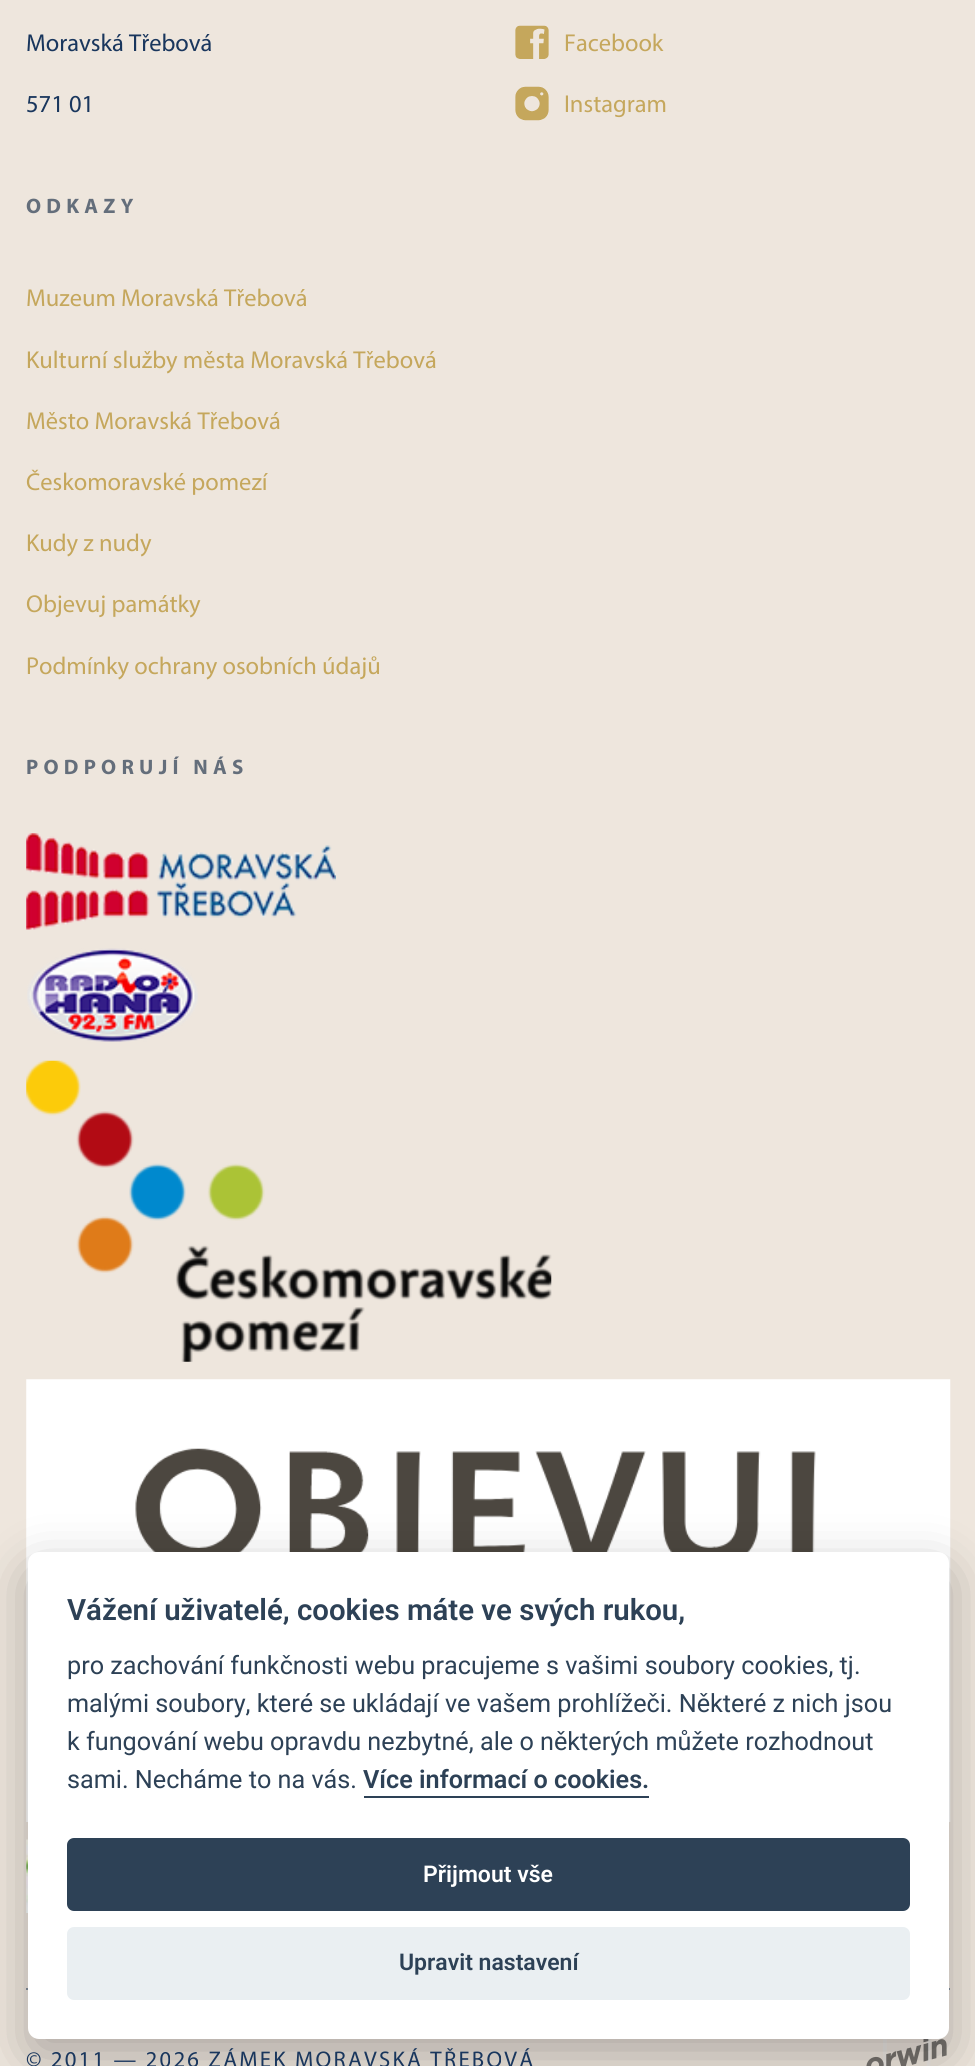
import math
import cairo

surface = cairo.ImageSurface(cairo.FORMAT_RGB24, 975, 2066)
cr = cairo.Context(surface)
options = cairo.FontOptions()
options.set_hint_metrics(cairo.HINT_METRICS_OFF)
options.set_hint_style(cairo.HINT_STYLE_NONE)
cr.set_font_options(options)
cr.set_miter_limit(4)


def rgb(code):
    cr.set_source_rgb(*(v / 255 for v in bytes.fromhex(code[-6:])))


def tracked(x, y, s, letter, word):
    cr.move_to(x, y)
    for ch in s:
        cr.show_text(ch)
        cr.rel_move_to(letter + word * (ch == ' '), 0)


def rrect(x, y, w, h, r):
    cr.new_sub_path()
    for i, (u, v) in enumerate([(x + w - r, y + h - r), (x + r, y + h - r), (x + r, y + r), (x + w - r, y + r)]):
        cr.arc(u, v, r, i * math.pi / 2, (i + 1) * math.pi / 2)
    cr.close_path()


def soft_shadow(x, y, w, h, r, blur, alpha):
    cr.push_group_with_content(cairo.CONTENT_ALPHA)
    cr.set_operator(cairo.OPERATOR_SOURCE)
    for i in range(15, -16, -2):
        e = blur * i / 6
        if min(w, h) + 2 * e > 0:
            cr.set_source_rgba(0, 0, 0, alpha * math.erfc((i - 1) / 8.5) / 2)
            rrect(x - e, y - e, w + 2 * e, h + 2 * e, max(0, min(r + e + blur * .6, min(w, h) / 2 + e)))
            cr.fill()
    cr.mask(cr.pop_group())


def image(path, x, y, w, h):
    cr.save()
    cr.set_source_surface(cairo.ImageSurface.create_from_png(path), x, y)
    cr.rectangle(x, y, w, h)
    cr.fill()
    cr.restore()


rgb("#eee6dd")
cr.paint()
image("img/1.png", 515, 25, 34, 34)
image("img/2.png", 515, 86, 34, 35)
image("img/3.png", 26, 833, 310, 97)
image("img/4.png", 27, 948, 171, 94)
image("img/5.png", 26, 1060, 526, 302)
image("img/6.png", 26, 1379, 925, 443)
image("img/7.png", 26, 1839, 2, 74)
rgb("#838e9d")
cr.rectangle(26, 1988, 924, 2)
cr.fill()
image("img/8.png", 866, 2039, 81, 27)
rgb("#020203")
soft_shadow(28, 1570, 921, 486, 11, 26, 0.28)
rgb("#ffffff")
rrect(28, 1552, 921, 487, 11)
cr.fill()
rgb("#2d4156")
cr.rectangle(364, 1796, 285, 2)
cr.fill()
rrect(67, 1838, 843, 73, 7)
cr.fill()
rgb("#eaeff2")
rrect(67, 1927, 843, 73, 7)
cr.fill()
cr.select_font_face("Myriad")
cr.set_font_size(24.5)
rgb("#19365d")
cr.move_to(26, 51)
cr.show_text("Moravská Třebová")
cr.move_to(26, 112)
cr.show_text("571 01")
rgb("#c5a75c")
cr.move_to(564, 51)
cr.show_text("Facebook")
cr.move_to(564, 112)
cr.show_text("Instagram")
cr.select_font_face("Myriad", cairo.FONT_SLANT_NORMAL, cairo.FONT_WEIGHT_BOLD)
cr.set_font_size(21)
rgb("#646e7b")
tracked(26, 213, "ODKAZY", 5.25, 0)
cr.select_font_face("Myriad")
cr.set_font_size(24.5)
rgb("#c5a75c")
for x, y, s in [
    (26, 306, "Muzeum Moravská Třebová"),
    (26, 368, "Kulturní služby města Moravská Třebová"),
    (26, 429, "Město Moravská Třebová"),
    (26, 490, "Českomoravské pomezí"),
    (26, 551, "Kudy z nudy"),
    (26, 612, "Objevuj památky"),
    (26, 674, "Podmínky ochrany osobních údajů"),
]:
    cr.move_to(x, y)
    cr.show_text(s)
cr.select_font_face("Myriad", cairo.FONT_SLANT_NORMAL, cairo.FONT_WEIGHT_BOLD)
cr.set_font_size(21)
rgb("#646e7b")
tracked(26, 774, "PODPORUJÍ NÁS", 5.25, 0)
cr.select_font_face("Myriad")
cr.set_font_size(22.75)
rgb("#19365d")
tracked(26, 2067, "© 2011 — 2026 ZÁMEK MORAVSKÁ TŘEBOVÁ", 2.25, 0)
cr.select_font_face("Roboto SemiBold")
cr.set_font_size(29.4)
rgb("#2d4156")
cr.move_to(67, 1620)
cr.show_text("Vážení uživatelé, cookies máte ve svých rukou,")
cr.select_font_face("Roboto")
cr.set_font_size(25.2)
for x, y, s in [
    (67, 1674, "pro zachování funkčnosti webu pracujeme s vašimi soubory cookies, tj."),
    (67, 1712, "malými soubory, které se ukládají ve vašem prohlížeči. Některé z nich jsou"),
    (67, 1750, "k fungování webu opravdu nezbytné, ale o některých můžete rozhodnout"),
    (67, 1788, "sami. Necháme to na vás."),
]:
    cr.move_to(x, y)
    cr.show_text(s)
cr.select_font_face("Roboto SemiBold")
cr.move_to(363, 1788)
cr.show_text("Více informací o cookies.")
cr.set_font_size(23)
rgb("#ffffff")
cr.move_to(423, 1882)
cr.show_text("Přijmout vše")
rgb("#2d4156")
cr.move_to(399, 1970)
cr.show_text("Upravit nastavení")
surface.write_to_png("page.png")
